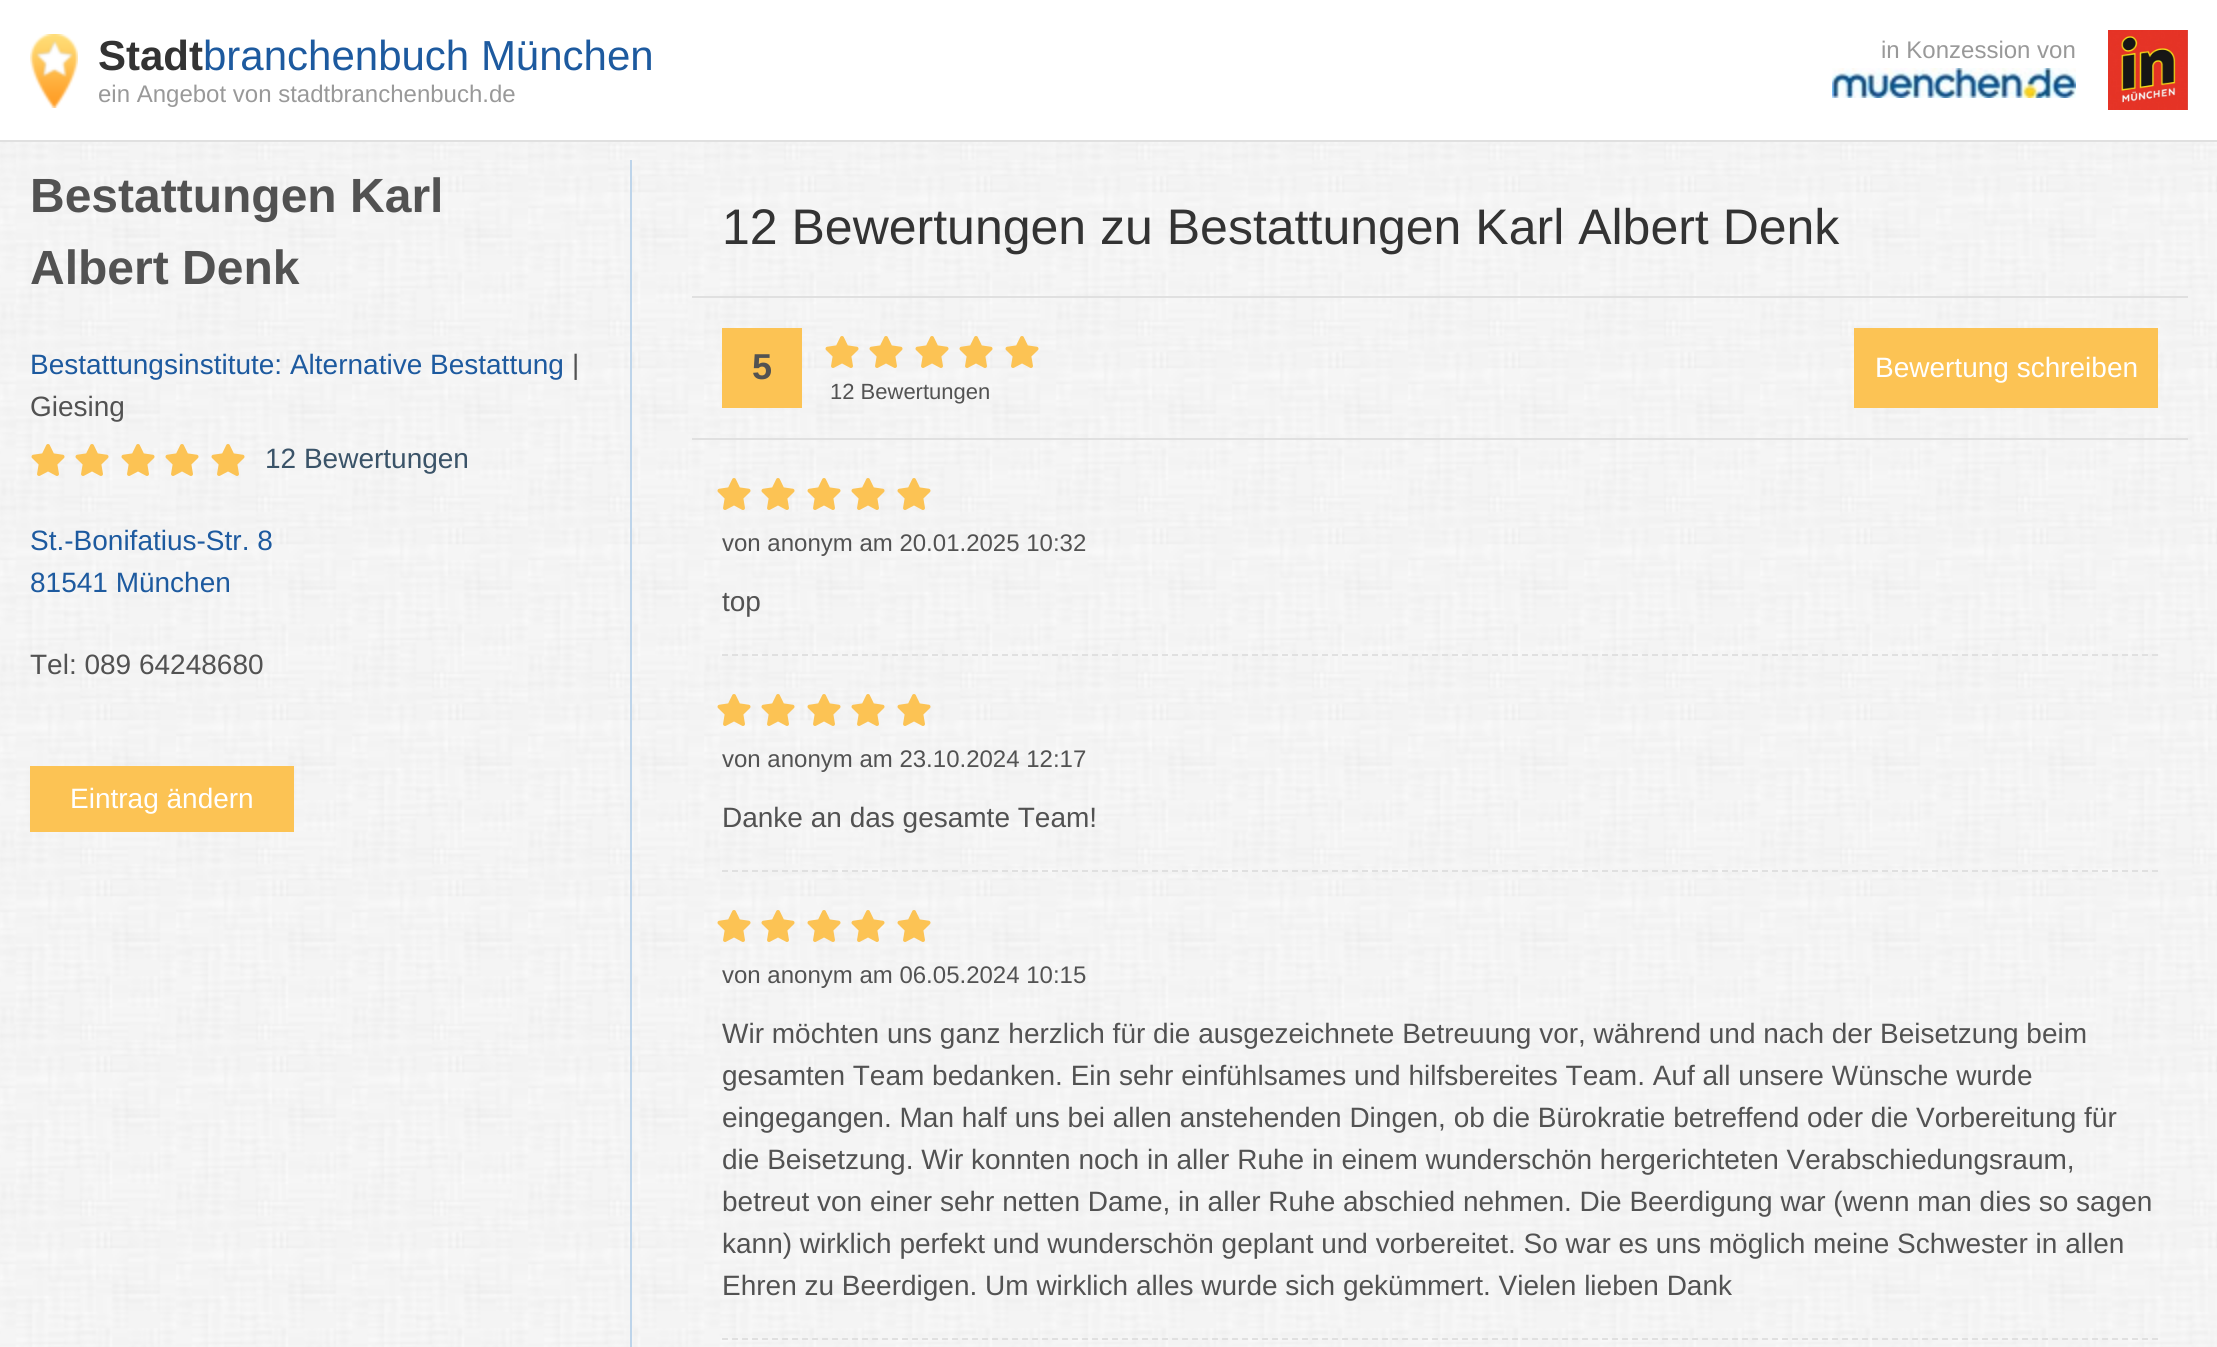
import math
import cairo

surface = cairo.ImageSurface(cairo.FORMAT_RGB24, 2217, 1347)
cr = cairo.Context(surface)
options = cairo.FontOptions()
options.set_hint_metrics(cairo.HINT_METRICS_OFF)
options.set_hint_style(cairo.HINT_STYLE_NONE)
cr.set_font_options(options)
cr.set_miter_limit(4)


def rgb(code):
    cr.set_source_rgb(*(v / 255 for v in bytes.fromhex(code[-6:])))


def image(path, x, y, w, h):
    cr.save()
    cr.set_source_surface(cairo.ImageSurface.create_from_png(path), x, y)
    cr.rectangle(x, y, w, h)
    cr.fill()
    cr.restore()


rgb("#ffffff")
cr.paint()
image("img/1.png", 0, 142, 2217, 1205)
rgb("#e0e0e0")
cr.rectangle(0, 140, 2217, 2)
cr.fill()
image("img/2.png", 30, 34, 48, 74)
image("img/3.png", 1832, 68, 244, 30)
image("img/4.png", 2108, 30, 80, 80)
image("img/5.png", 31, 444, 34, 32)
image("img/6.png", 75, 444, 34, 32)
image("img/7.png", 121, 444, 34, 32)
image("img/8.png", 165, 444, 34, 32)
image("img/9.png", 211, 444, 34, 32)
for x, y, w, h, color in [
    (30, 766, 264, 66, "#fcc354"),
    (630, 160, 2, 1187, "#bdd4ea"),
    (692, 296, 1496, 2, "#e0e0e0"),
    (692, 438, 1496, 2, "#e0e0e0"),
    (722, 328, 80, 80, "#fcc354"),
]:
    rgb(color)
    cr.rectangle(x, y, w, h)
    cr.fill()
image("img/10.png", 825, 336, 34, 32)
image("img/11.png", 869, 336, 34, 32)
image("img/12.png", 915, 336, 34, 32)
image("img/13.png", 959, 336, 34, 32)
image("img/14.png", 1005, 336, 34, 32)
cr.rectangle(1854, 328, 304, 80)
cr.fill()
cr.new_path()
cr.move_to(722, 655)
cr.line_to(2158, 655)
rgb("#e0e0e0")
cr.set_dash([6, 4])
cr.stroke()
image("img/15.png", 717, 478, 34, 32)
image("img/16.png", 761, 478, 34, 32)
image("img/17.png", 807, 478, 34, 32)
image("img/18.png", 851, 478, 34, 32)
image("img/19.png", 897, 478, 34, 32)
cr.new_path()
cr.move_to(722, 871)
cr.line_to(2158, 871)
cr.stroke()
image("img/20.png", 717, 694, 34, 32)
image("img/21.png", 761, 694, 34, 32)
image("img/22.png", 807, 694, 34, 32)
image("img/23.png", 851, 694, 34, 32)
image("img/24.png", 897, 694, 34, 32)
cr.new_path()
cr.move_to(722, 1339)
cr.line_to(2158, 1339)
cr.stroke()
image("img/25.png", 717, 910, 34, 32)
image("img/26.png", 761, 910, 34, 32)
image("img/27.png", 807, 910, 34, 32)
image("img/28.png", 851, 910, 34, 32)
image("img/29.png", 897, 910, 34, 32)
cr.select_font_face("Liberation Sans", cairo.FONT_SLANT_NORMAL, cairo.FONT_WEIGHT_BOLD)
cr.set_font_size(42)
rgb("#333333")
cr.move_to(98, 70)
cr.show_text("Stadt")
cr.select_font_face("Liberation Sans")
rgb("#1d5a9f")
cr.move_to(203, 70)
cr.show_text("branchenbuch München")
cr.set_font_size(24)
rgb("#999999")
cr.move_to(98, 102)
cr.show_text("ein Angebot von stadtbranchenbuch.de")
cr.move_to(1881, 58)
cr.show_text("in Konzession von")
cr.select_font_face("Liberation Sans", cairo.FONT_SLANT_NORMAL, cairo.FONT_WEIGHT_BOLD)
cr.set_font_size(48)
rgb("#525252")
cr.move_to(30, 212)
cr.show_text("Bestattungen Karl")
cr.move_to(30, 284)
cr.show_text("Albert Denk")
cr.select_font_face("Liberation Sans")
cr.set_font_size(28)
rgb("#1d5a9f")
cr.move_to(30, 374)
cr.show_text("Bestattungsinstitute: Alternative Bestattung")
rgb("#525252")
cr.move_to(572, 374)
cr.show_text("|")
cr.move_to(30, 416)
cr.show_text("Giesing")
rgb("#3a5368")
cr.move_to(265, 468)
cr.show_text("12 Bewertungen")
rgb("#1d5a9f")
cr.move_to(30, 550)
cr.show_text("St.-Bonifatius-Str. 8")
cr.move_to(30, 592)
cr.show_text("81541 München")
rgb("#525252")
cr.move_to(30, 674)
cr.show_text("Tel: 089 64248680")
rgb("#ffffff")
cr.move_to(70, 808)
cr.show_text("Eintrag ändern")
cr.set_font_size(50)
rgb("#333333")
cr.move_to(722, 244)
cr.show_text("12 Bewertungen zu Bestattungen Karl Albert Denk")
cr.select_font_face("Liberation Sans", cairo.FONT_SLANT_NORMAL, cairo.FONT_WEIGHT_BOLD)
cr.set_font_size(36)
rgb("#525252")
cr.move_to(752, 379)
cr.show_text("5")
cr.select_font_face("Liberation Sans")
cr.set_font_size(22)
cr.move_to(830, 399)
cr.show_text("12 Bewertungen")
cr.set_font_size(28)
rgb("#ffffff")
cr.move_to(1875, 377)
cr.show_text("Bewertung schreiben")
cr.set_font_size(24)
rgb("#525252")
cr.move_to(722, 551)
cr.show_text("von anonym am 20.01.2025 10:32")
cr.set_font_size(28)
cr.move_to(722, 611)
cr.show_text("top")
cr.set_font_size(24)
cr.move_to(722, 767)
cr.show_text("von anonym am 23.10.2024 12:17")
cr.set_font_size(28)
cr.move_to(722, 827)
cr.show_text("Danke an das gesamte Team!")
cr.set_font_size(24)
cr.move_to(722, 983)
cr.show_text("von anonym am 06.05.2024 10:15")
cr.set_font_size(28)
for x, y, s in [
    (722, 1043, "Wir möchten uns ganz herzlich für die ausgezeichnete Betreuung vor, während und nach der Beisetzung beim"),
    (722, 1085, "gesamten Team bedanken. Ein sehr einfühlsames und hilfsbereites Team. Auf all unsere Wünsche wurde"),
    (722, 1127, "eingegangen. Man half uns bei allen anstehenden Dingen, ob die Bürokratie betreffend oder die Vorbereitung für"),
    (722, 1169, "die Beisetzung. Wir konnten noch in aller Ruhe in einem wunderschön hergerichteten Verabschiedungsraum,"),
    (722, 1211, "betreut von einer sehr netten Dame, in aller Ruhe abschied nehmen. Die Beerdigung war (wenn man dies so sagen"),
    (722, 1253, "kann) wirklich perfekt und wunderschön geplant und vorbereitet. So war es uns möglich meine Schwester in allen"),
    (722, 1295, "Ehren zu Beerdigen. Um wirklich alles wurde sich gekümmert. Vielen lieben Dank"),
]:
    cr.move_to(x, y)
    cr.show_text(s)
surface.write_to_png("page.png")
